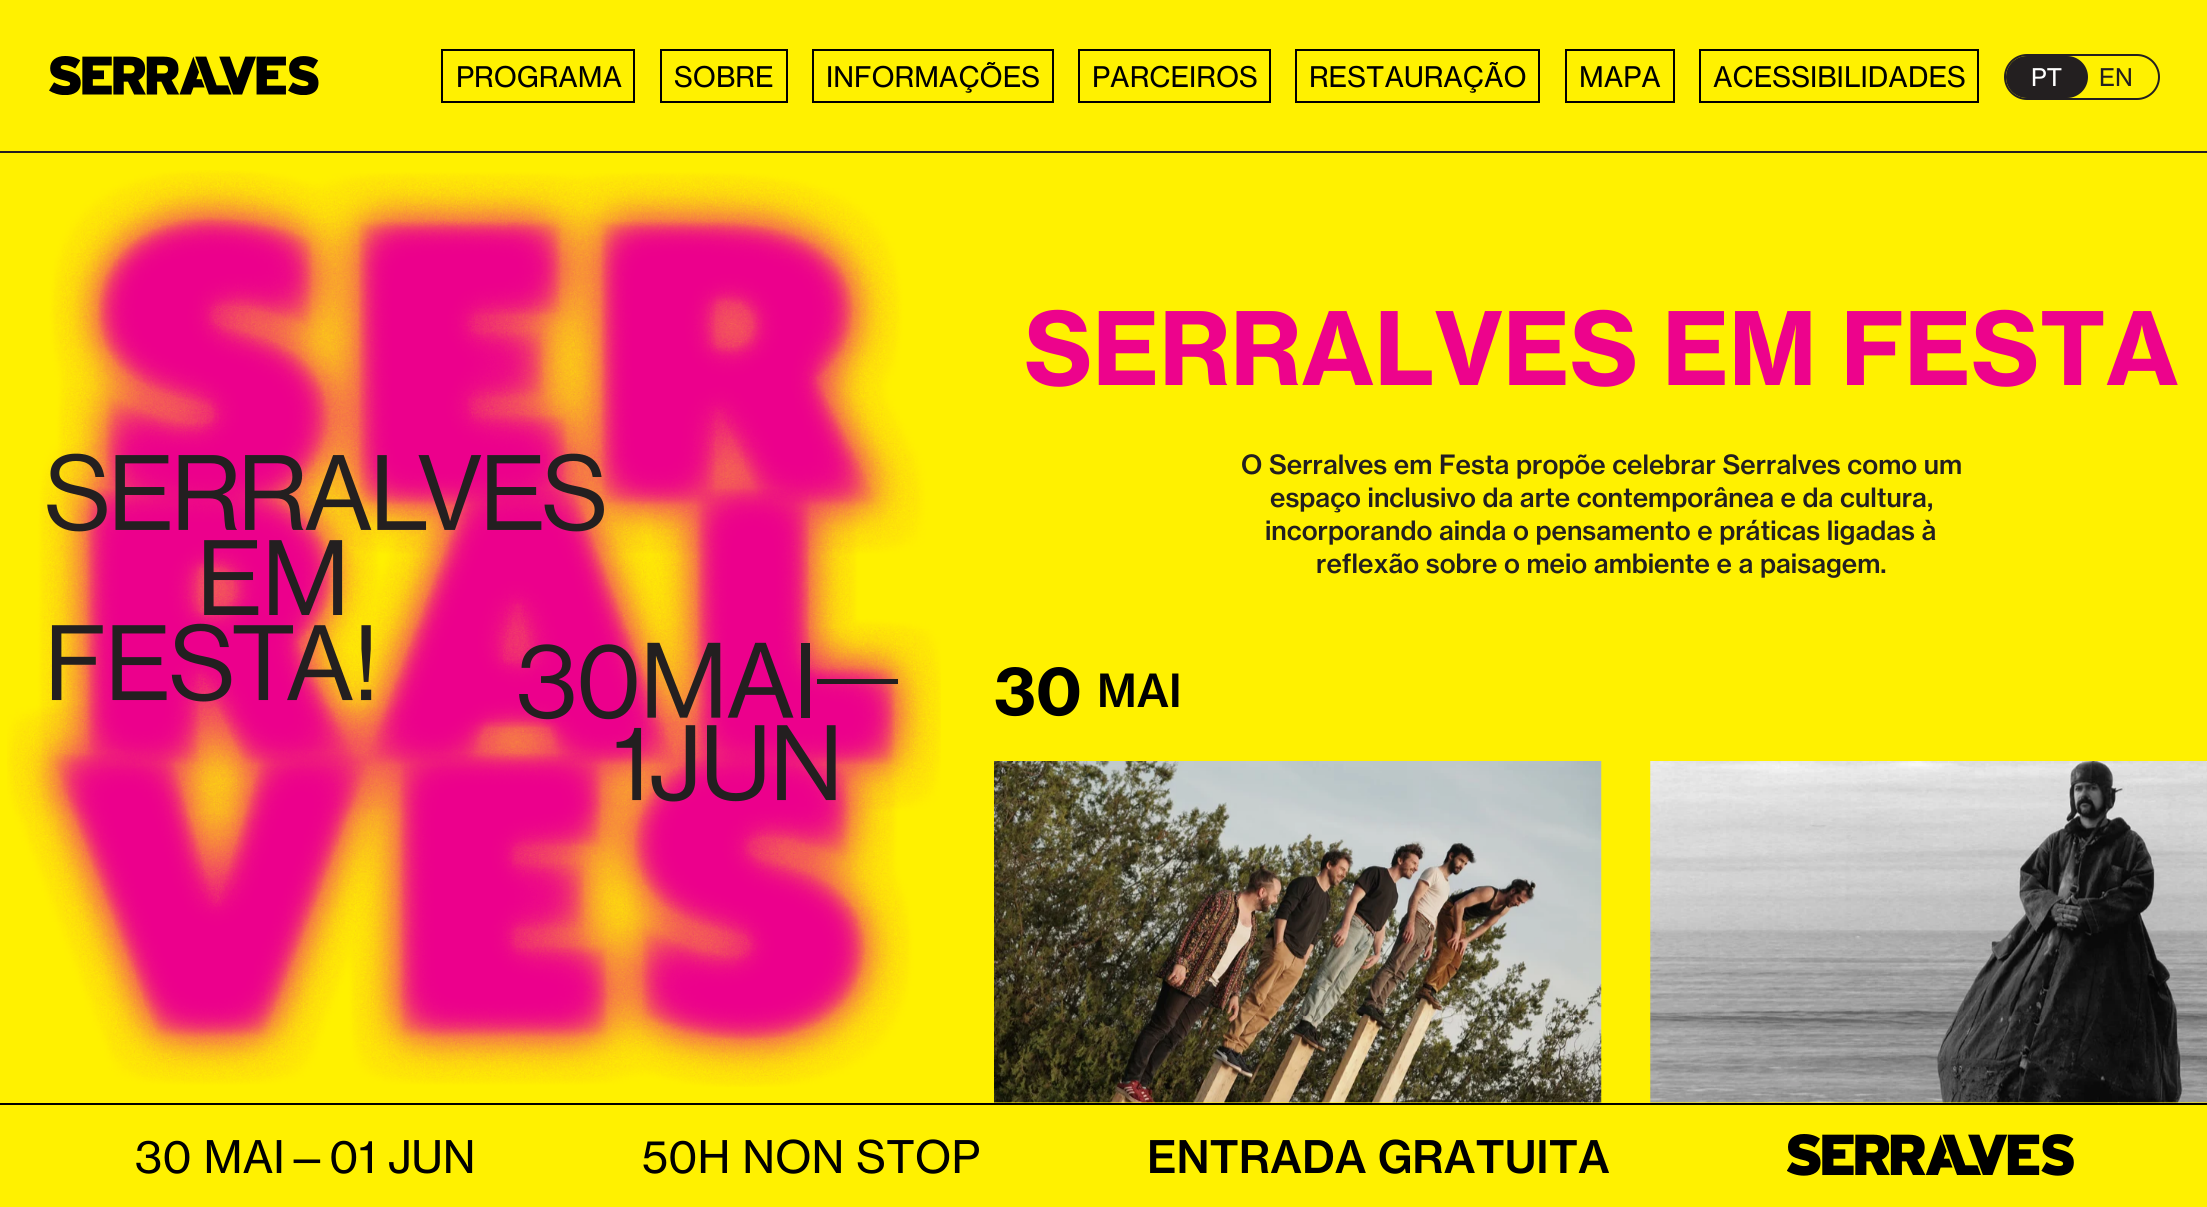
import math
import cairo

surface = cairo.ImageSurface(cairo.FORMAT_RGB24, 2207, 1207)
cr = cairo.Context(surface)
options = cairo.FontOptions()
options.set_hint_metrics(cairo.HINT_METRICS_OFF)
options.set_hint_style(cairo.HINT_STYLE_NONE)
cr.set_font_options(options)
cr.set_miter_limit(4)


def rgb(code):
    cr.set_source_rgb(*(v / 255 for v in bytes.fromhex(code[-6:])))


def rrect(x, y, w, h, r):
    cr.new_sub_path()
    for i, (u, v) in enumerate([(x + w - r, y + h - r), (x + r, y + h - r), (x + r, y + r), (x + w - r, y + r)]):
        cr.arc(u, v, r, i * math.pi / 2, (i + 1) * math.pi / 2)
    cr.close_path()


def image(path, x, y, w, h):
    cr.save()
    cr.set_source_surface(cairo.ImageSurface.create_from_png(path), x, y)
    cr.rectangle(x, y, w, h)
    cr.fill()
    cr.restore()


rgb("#fff100")
cr.paint()
image("img/1.png", 49, 56, 270, 39)
cr.rectangle(442, 50, 192, 52)
rgb("#000000")
cr.stroke()
cr.rectangle(661, 50, 126, 52)
cr.stroke()
cr.rectangle(813, 50, 240, 52)
cr.stroke()
cr.rectangle(1079, 50, 191, 52)
cr.stroke()
cr.rectangle(1296, 50, 243, 52)
cr.stroke()
cr.rectangle(1566, 50, 108, 52)
cr.stroke()
cr.rectangle(1700, 50, 278, 52)
cr.stroke()
rrect(2005, 55, 154, 44, 22)
rgb("#231f20")
cr.stroke()
rrect(2006, 56, 82, 42, 21)
cr.fill()
cr.rectangle(0, 151, 2207, 2)
cr.fill()
image("img/2.png", 7, 170, 934, 917)
image("img/3.png", 47, 453, 851, 349)
image("img/4.png", 994, 761, 608, 342)
image("img/5.png", 1650, 761, 557, 342)
rgb("#000000")
cr.rectangle(0, 1103, 2207, 2)
cr.fill()
image("img/6.png", 1787, 1134, 287, 42)
cr.select_font_face("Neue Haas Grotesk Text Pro")
cr.set_font_size(28)
for x, y, s in [
    (456, 87, "PROGRAMA"),
    (674, 87, "SOBRE"),
    (826, 87, "INFORMAÇÕES"),
    (1092, 87, "PARCEIROS"),
    (1309, 87, "RESTAURAÇÃO"),
    (1579, 87, "MAPA"),
    (1713, 87, "ACESSIBILIDADES"),
]:
    cr.move_to(x, y)
    cr.show_text(s)
cr.set_font_size(24)
rgb("#ffffff")
cr.move_to(2031, 86)
cr.show_text("PT")
rgb("#231f20")
cr.move_to(2099, 86)
cr.show_text("EN")
cr.select_font_face("Neue Haas Grotesk Text Pro", cairo.FONT_SLANT_NORMAL, cairo.FONT_WEIGHT_BOLD)
cr.set_font_size(99.4)
rgb("#ed038c")
cr.move_to(1024, 385)
cr.show_text("SERRALVES EM FESTA")
cr.select_font_face("Neue Haas Grotesk Text Pro Medium")
cr.set_font_size(26.2)
rgb("#231f20")
for x, y, s in [
    (1241, 474, "O Serralves em Festa propõe celebrar Serralves como um"),
    (1270, 507, "espaço inclusivo da arte contemporânea e da cultura,"),
    (1265, 540, "incorporando ainda o pensamento e práticas ligadas à"),
    (1316, 573, "reflexão sobre o meio ambiente e a paisagem."),
]:
    cr.move_to(x, y)
    cr.show_text(s)
cr.select_font_face("Neue Haas Grotesk Text Pro", cairo.FONT_SLANT_NORMAL, cairo.FONT_WEIGHT_BOLD)
cr.set_font_size(66)
rgb("#000000")
cr.move_to(994, 715)
cr.show_text("30")
cr.select_font_face("Neue Haas Grotesk Text Pro Medium")
cr.set_font_size(45)
cr.move_to(1097, 707)
cr.show_text("MAI")
cr.select_font_face("Neue Haas Grotesk Text Pro")
cr.set_font_size(44.25)
cr.move_to(135, 1173)
cr.show_text("30 MAI—01 JUN")
cr.move_to(642, 1173)
cr.show_text("50H NON STOP")
cr.select_font_face("Neue Haas Grotesk Text Pro Medium")
cr.move_to(1147, 1173)
cr.show_text("ENTRADA GRATUITA")
surface.write_to_png("page.png")
